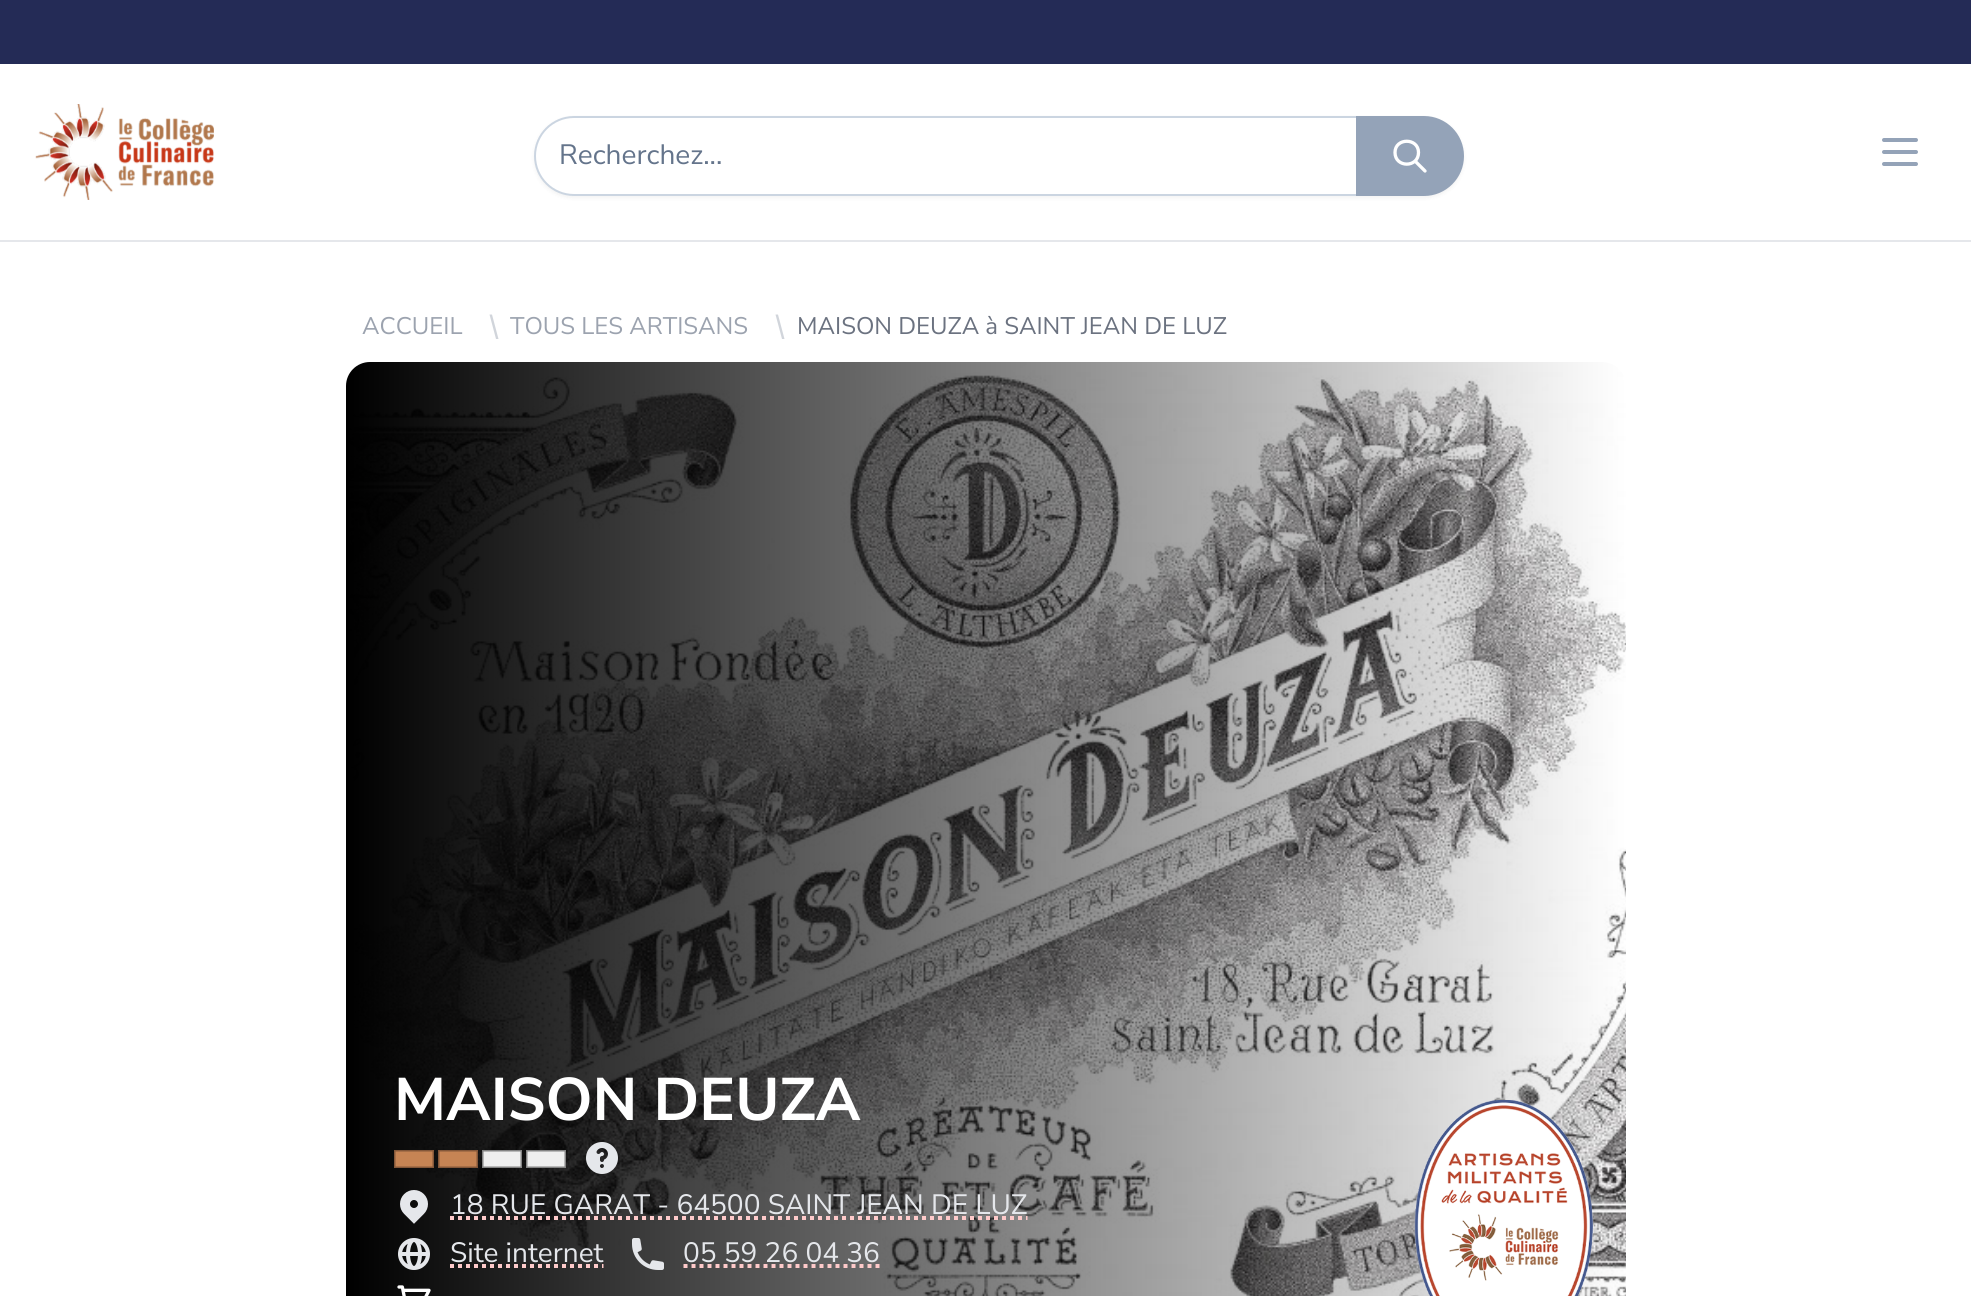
import math
import cairo

surface = cairo.ImageSurface(cairo.FORMAT_RGB24, 1971, 1296)
cr = cairo.Context(surface)
options = cairo.FontOptions()
options.set_hint_metrics(cairo.HINT_METRICS_OFF)
options.set_hint_style(cairo.HINT_STYLE_NONE)
cr.set_font_options(options)
cr.set_miter_limit(4)


def rgb(code):
    cr.set_source_rgb(*(v / 255 for v in bytes.fromhex(code[-6:])))


def rrect(x, y, w, h, r):
    cr.new_sub_path()
    for i, (u, v) in enumerate([(x + w - r, y + h - r), (x + r, y + h - r), (x + r, y + r), (x + w - r, y + r)]):
        cr.arc(u, v, r, i * math.pi / 2, (i + 1) * math.pi / 2)
    cr.close_path()


def soft_shadow(x, y, w, h, r, blur, alpha):
    cr.push_group_with_content(cairo.CONTENT_ALPHA)
    cr.set_operator(cairo.OPERATOR_SOURCE)
    for i in range(15, -16, -2):
        e = blur * i / 6
        if min(w, h) + 2 * e > 0:
            cr.set_source_rgba(0, 0, 0, alpha * math.erfc((i - 1) / 8.5) / 2)
            rrect(x - e, y - e, w + 2 * e, h + 2 * e, max(0, min(r + e + blur * .6, min(w, h) / 2 + e)))
            cr.fill()
    cr.mask(cr.pop_group())


def image(path, x, y, w, h):
    cr.save()
    cr.set_source_surface(cairo.ImageSurface.create_from_png(path), x, y)
    cr.rectangle(x, y, w, h)
    cr.fill()
    cr.restore()


rgb("#ffffff")
cr.paint()
rgb("#242b56")
cr.rectangle(0, 0, 1971, 64)
cr.fill()
rgb("#e5e7eb")
cr.rectangle(0, 240, 1971, 2)
cr.fill()
image("img/1.png", 35, 104, 179, 96)
rgb("#000000")
soft_shadow(534, 118, 930, 80, 40, 2, 0.05)
rgb("#ffffff")
cr.new_path()
cr.move_to(574, 117)
cr.line_to(1357, 117)
cr.line_to(1357, 195)
cr.line_to(574, 195)
cr.curve_to(552.5, 195, 535, 177.5, 535, 156)
cr.curve_to(535, 134.5, 552.5, 117, 574, 117)
cr.close_path()
cr.fill_preserve()
rgb("#cbd5e1")
cr.stroke()
rgb("#94a3b8")
cr.new_path()
cr.move_to(1357, 117)
cr.line_to(1424, 117)
cr.curve_to(1445.5, 117, 1463, 134.5, 1463, 156)
cr.curve_to(1463, 177.5, 1445.5, 195, 1424, 195)
cr.line_to(1357, 195)
cr.close_path()
cr.fill_preserve()
cr.stroke()
cr.new_path()
cr.move_to(1425, 171)
cr.line_to(1415, 161)
cr.move_to(1418.5, 152.5)
cr.curve_to(1418.5, 168, 1395, 168, 1395, 152.5)
cr.curve_to(1395, 137.5, 1418.5, 137.5, 1418.5, 152.5)
cr.close_path()
rgb("#ffffff")
cr.set_line_width(3.3)
cr.set_line_cap(cairo.LINE_CAP_ROUND)
cr.set_line_join(cairo.LINE_JOIN_ROUND)
cr.stroke()
cr.new_path()
cr.move_to(1884, 140)
cr.line_to(1916, 140)
cr.move_to(1884, 152)
cr.line_to(1916, 152)
cr.move_to(1884, 164)
cr.line_to(1916, 164)
rgb("#94a3b8")
cr.set_line_width(4)
cr.stroke()
rgb("#d1d5db")
cr.new_path()
cr.move_to(489.5, 314.5)
cr.line_to(496, 339)
cr.line_to(498.5, 339)
cr.line_to(492, 314.5)
cr.close_path()
cr.fill()
cr.new_path()
cr.move_to(775.5, 314.5)
cr.line_to(782, 339)
cr.line_to(784.5, 339)
cr.line_to(778, 314.5)
cr.close_path()
cr.fill()
image("img/2.png", 346, 362, 1280, 934)
gradient = cairo.LinearGradient(346, 874, 1626, 874)
gradient.add_color_stop_rgba(0, 0, 0, 0, 1)
gradient.add_color_stop_rgba(1, 0, 0, 0, 0)
cr.set_source(gradient)
rrect(346, 362, 1280, 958, 24)
cr.fill()
rgb("#c68454")
cr.rectangle(394.75, 1150.75, 38.5, 16.5)
cr.fill_preserve()
rgb("#845739")
cr.set_line_width(1.5)
cr.set_line_cap(cairo.LINE_CAP_BUTT)
cr.set_line_join(cairo.LINE_JOIN_MITER)
cr.stroke()
rgb("#c68454")
cr.rectangle(438.75, 1150.75, 38.5, 16.5)
cr.fill_preserve()
rgb("#845739")
cr.stroke()
rgb("#efefef")
cr.rectangle(482.75, 1150.75, 38.5, 16.5)
cr.fill_preserve()
rgb("#848484")
cr.stroke()
rgb("#efefef")
cr.rectangle(526.75, 1150.75, 38.5, 16.5)
cr.fill_preserve()
rgb("#848484")
cr.stroke()
image("img/3.png", 586, 1142, 32, 32)
image("img/4.png", 400, 1190, 28, 34)
cr.new_path()
cr.move_to(450, 1218)
cr.line_to(1027.5, 1218)
rgb("#fecaca")
cr.set_line_width(4)
cr.set_dash([4, 4])
cr.stroke()
image("img/5.png", 398, 1238, 32, 32)
cr.new_path()
cr.move_to(450, 1266)
cr.line_to(603.5, 1266)
cr.stroke()
image("img/6.png", 632, 1238, 32, 32)
cr.new_path()
cr.move_to(683.5, 1266)
cr.line_to(880, 1266)
cr.stroke()
image("img/7.png", 397, 1285, 34, 11)
image("img/8.png", 1414, 1100, 179, 196)
cr.select_font_face("Nunito Sans")
cr.set_font_size(28)
rgb("#64748b")
cr.move_to(559, 164)
cr.show_text("Recherchez...")
cr.set_font_size(24)
rgb("#9ca3af")
cr.move_to(362, 334)
cr.show_text("ACCUEIL")
cr.move_to(510, 334)
cr.show_text("TOUS LES ARTISANS")
rgb("#6b7280")
cr.move_to(797, 334)
cr.show_text("MAISON DEUZA à SAINT JEAN DE LUZ")
cr.select_font_face("Nunito Sans", cairo.FONT_SLANT_NORMAL, cairo.FONT_WEIGHT_BOLD)
cr.set_font_size(60)
rgb("#ffffff")
cr.move_to(394, 1120)
cr.show_text("MAISON DEUZA")
cr.select_font_face("Nunito Sans")
cr.set_font_size(28)
rgb("#e5e7eb")
for x, y, s in [
    (450, 1214, "18 RUE GARAT - 64500 SAINT JEAN DE LUZ"),
    (450, 1262, "Site internet"),
    (683, 1262, "05 59 26 04 36"),
]:
    cr.move_to(x, y)
    cr.show_text(s)
surface.write_to_png("page.png")
